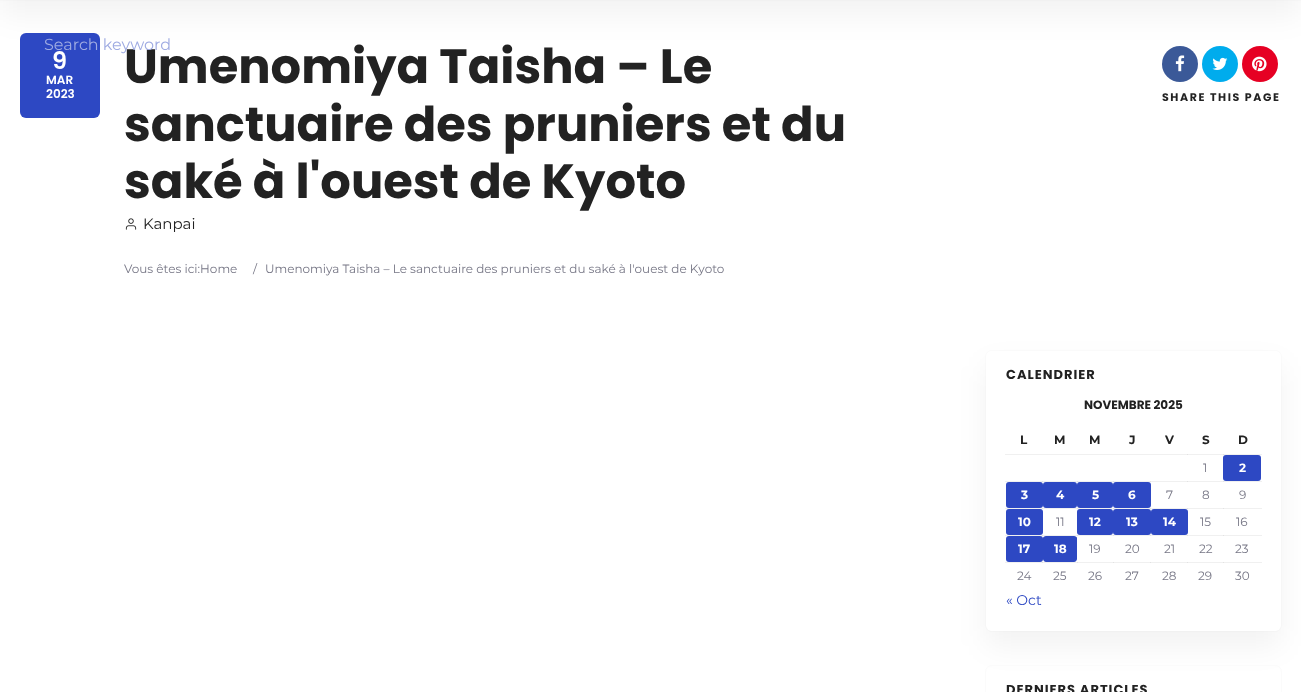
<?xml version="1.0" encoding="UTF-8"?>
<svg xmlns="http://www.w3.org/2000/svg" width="1301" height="692">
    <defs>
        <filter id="blur1" x="-50%" y="-200%" width="200%" height="500%"><feGaussianBlur stdDeviation="15"/></filter>
    </defs>
    <rect width="100%" height="100%" fill="#FFFFFF"/>
    <rect x="0" y="0" width="1301" height="1" fill="#FCFCFC"/>
    <rect x="20" y="33" width="80" height="85" rx="6" fill="#2D48C3"/>
    <circle cx="1180" cy="64" r="18" fill="#3B5998"/>
    <image x="1175" y="55" width="10" height="17" href="img_02.png"/>
    <circle cx="1220" cy="64" r="18" fill="#00ACED"/>
    <image x="1212" y="57" width="16" height="13" href="img_03.png"/>
    <circle cx="1260" cy="64" r="18" fill="#E60023"/>
    <image x="1252" y="56" width="15" height="16" href="img_04.png"/>
    <rect x="0" y="-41" width="1301" height="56" fill="#000000" fill-opacity="0.05" filter="url(#blur1)"/>
    <text x="124" y="83" font-family="Poppins" font-size="48" font-weight="700" fill="#222222">Umenomiya Taisha – Le</text>
    <text x="44" y="50" font-family="Montserrat" font-size="16" fill="#9FABE2">Search keyword</text>
    <text x="52" y="69" font-family="Poppins" font-size="24" font-weight="600" fill="#FFFFFF">9</text>
    <text font-family="Poppins" font-size="12" font-weight="600" fill="#FFFFFF">
        <tspan x="46" y="84">MAR</tspan>
        <tspan x="46" y="98">2023</tspan>
    </text>
    <text font-family="Poppins" font-size="48" font-weight="700" fill="#222222">
        <tspan x="124" y="141">sanctuaire des pruniers et du</tspan>
        <tspan x="124" y="198">saké à l'ouest de Kyoto</tspan>
    </text>
    <image x="125" y="218" width="12" height="12" href="img_01.png"/>
    <text x="143" y="229" font-family="Montserrat" font-size="15" fill="#222222">Kanpai</text>
    <text x="124" y="273" font-family="Montserrat" font-size="12" fill="#767685">Vous êtes ici:Home</text>
    <text x="253" y="273" font-family="Montserrat" font-size="12" fill="#767685">/</text>
    <text x="265" y="273" font-family="Montserrat" font-size="12" fill="#767685">Umenomiya Taisha – Le sanctuaire des pruniers et du saké à l'ouest de Kyoto</text>
    <text x="1162" y="101" font-family="Poppins" font-size="11" font-weight="700" letter-spacing="1.6" fill="#222222">SHARE THIS PAGE</text>
    <rect x="985.5" y="350.5" width="296" height="281" rx="6.5" fill="none" stroke="#FCFCFC"/>
    <rect x="986" y="366" width="295" height="280" rx="6" fill="#000000" fill-opacity="0.05" filter="url(#blur1)"/>
    <rect x="986" y="351" width="295" height="280" rx="6" fill="#FFFFFF"/>
    <rect x="1005" y="454" width="257" height="1" fill="#F0F0F0"/>
    <rect x="1187" y="454" width="1" height="1" fill="#E2E2E2"/>
    <rect x="1005" y="481" width="257" height="1" fill="#F0F0F0"/>
    <rect x="1042" y="481" width="1" height="1" fill="#E2E2E2"/>
    <rect x="1077" y="481" width="1" height="1" fill="#E2E2E2"/>
    <rect x="1113" y="481" width="1" height="1" fill="#E2E2E2"/>
    <rect x="1150" y="481" width="1" height="1" fill="#E2E2E2"/>
    <rect x="1187" y="481" width="1" height="1" fill="#E2E2E2"/>
    <rect x="1005" y="508" width="257" height="1" fill="#F0F0F0"/>
    <rect x="1042" y="508" width="1" height="1" fill="#E2E2E2"/>
    <rect x="1077" y="508" width="1" height="1" fill="#E2E2E2"/>
    <rect x="1113" y="508" width="1" height="1" fill="#E2E2E2"/>
    <rect x="1150" y="508" width="1" height="1" fill="#E2E2E2"/>
    <rect x="1187" y="508" width="1" height="1" fill="#E2E2E2"/>
    <rect x="1005" y="535" width="257" height="1" fill="#F0F0F0"/>
    <rect x="1042" y="535" width="1" height="1" fill="#E2E2E2"/>
    <rect x="1077" y="535" width="1" height="1" fill="#E2E2E2"/>
    <rect x="1113" y="535" width="1" height="1" fill="#E2E2E2"/>
    <rect x="1150" y="535" width="1" height="1" fill="#E2E2E2"/>
    <rect x="1187" y="535" width="1" height="1" fill="#E2E2E2"/>
    <rect x="1005" y="562" width="257" height="1" fill="#F0F0F0"/>
    <rect x="1042" y="562" width="1" height="1" fill="#E2E2E2"/>
    <rect x="1077" y="562" width="1" height="1" fill="#E2E2E2"/>
    <rect x="1113" y="562" width="1" height="1" fill="#E2E2E2"/>
    <rect x="1150" y="562" width="1" height="1" fill="#E2E2E2"/>
    <rect x="1187" y="562" width="1" height="1" fill="#E2E2E2"/>
    <text x="1006" y="379" font-family="Poppins" font-size="13" font-weight="700" letter-spacing="1" fill="#222222">CALENDRIER</text>
    <text x="1084" y="409" font-family="Poppins" font-size="12" font-weight="700" fill="#222222">NOVEMBRE 2025</text>
    <text x="1020" y="444" font-family="Montserrat" font-size="12" font-weight="700" fill="#222222">L</text>
    <text x="1054" y="444" font-family="Montserrat" font-size="12" font-weight="700" fill="#222222">M</text>
    <text x="1089" y="444" font-family="Montserrat" font-size="12" font-weight="700" fill="#222222">M</text>
    <text x="1129" y="444" font-family="Montserrat" font-size="12" font-weight="700" fill="#222222">J</text>
    <text x="1165" y="444" font-family="Montserrat" font-size="12" font-weight="700" fill="#222222">V</text>
    <text x="1202" y="444" font-family="Montserrat" font-size="12" font-weight="700" fill="#222222">S</text>
    <text x="1238" y="444" font-family="Montserrat" font-size="12" font-weight="700" fill="#222222">D</text>
    <text x="1203" y="472" font-family="Montserrat" font-size="12" fill="#767685">1</text>
    <rect x="1223" y="454" width="1" height="1" fill="#E2E2E2"/>
    <rect x="1223" y="455" width="38" height="26" rx="3" fill="#2D48C3"/>
    <text x="1239" y="472" font-family="Montserrat" font-size="12" font-weight="700" fill="#FFFFFF">2</text>
    <rect x="1006" y="482" width="37" height="26" rx="3" fill="#2D48C3"/>
    <text x="1021" y="499" font-family="Montserrat" font-size="12" font-weight="700" fill="#FFFFFF">3</text>
    <rect x="1043" y="482" width="34" height="26" rx="3" fill="#2D48C3"/>
    <text x="1056" y="499" font-family="Montserrat" font-size="12" font-weight="700" fill="#FFFFFF">4</text>
    <rect x="1077" y="482" width="36" height="26" rx="3" fill="#2D48C3"/>
    <text x="1092" y="499" font-family="Montserrat" font-size="12" font-weight="700" fill="#FFFFFF">5</text>
    <rect x="1113" y="482" width="38" height="26" rx="3" fill="#2D48C3"/>
    <text x="1128" y="499" font-family="Montserrat" font-size="12" font-weight="700" fill="#FFFFFF">6</text>
    <text x="1166" y="499" font-family="Montserrat" font-size="12" fill="#767685">7</text>
    <text x="1202" y="499" font-family="Montserrat" font-size="12" fill="#767685">8</text>
    <rect x="1223" y="481" width="1" height="1" fill="#E2E2E2"/>
    <text x="1239" y="499" font-family="Montserrat" font-size="12" fill="#767685">9</text>
    <rect x="1006" y="509" width="37" height="26" rx="3" fill="#2D48C3"/>
    <text x="1018" y="526" font-family="Montserrat" font-size="12" font-weight="700" fill="#FFFFFF">10</text>
    <text x="1056" y="526" font-family="Montserrat" font-size="12" fill="#767685">11</text>
    <rect x="1077" y="509" width="36" height="26" rx="3" fill="#2D48C3"/>
    <text x="1089" y="526" font-family="Montserrat" font-size="12" font-weight="700" fill="#FFFFFF">12</text>
    <rect x="1113" y="509" width="38" height="26" rx="3" fill="#2D48C3"/>
    <text x="1126" y="526" font-family="Montserrat" font-size="12" font-weight="700" fill="#FFFFFF">13</text>
    <rect x="1151" y="509" width="37" height="26" rx="3" fill="#2D48C3"/>
    <text x="1163" y="526" font-family="Montserrat" font-size="12" font-weight="700" fill="#FFFFFF">14</text>
    <text x="1200" y="526" font-family="Montserrat" font-size="12" fill="#767685">15</text>
    <rect x="1223" y="508" width="1" height="1" fill="#E2E2E2"/>
    <text x="1236" y="526" font-family="Montserrat" font-size="12" fill="#767685">16</text>
    <rect x="1006" y="536" width="37" height="26" rx="3" fill="#2D48C3"/>
    <text x="1018" y="553" font-family="Montserrat" font-size="12" font-weight="700" fill="#FFFFFF">17</text>
    <path d="M 1046 536 H 1074 C 1075.5 536 1077 537 1077 538 V 559 C 1077 560.5 1075.5 562 1074 562 H 1046 C 1044.5 562 1043 560.5 1043 559 V 538 C 1043 537 1044.5 536 1046 536 Z" fill="#2D48C3"/>
    <text x="1054" y="553" font-family="Montserrat" font-size="12" font-weight="700" fill="#FFFFFF">18</text>
    <text x="1089" y="553" font-family="Montserrat" font-size="12" fill="#767685">19</text>
    <text x="1125" y="553" font-family="Montserrat" font-size="12" fill="#767685">20</text>
    <text x="1164" y="553" font-family="Montserrat" font-size="12" fill="#767685">21</text>
    <text x="1199" y="553" font-family="Montserrat" font-size="12" fill="#767685">22</text>
    <rect x="1223" y="535" width="1" height="1" fill="#E2E2E2"/>
    <text x="1235" y="553" font-family="Montserrat" font-size="12" fill="#767685">23</text>
    <text x="1017" y="580" font-family="Montserrat" font-size="12" fill="#767685">24</text>
    <text x="1053" y="580" font-family="Montserrat" font-size="12" fill="#767685">25</text>
    <text x="1088" y="580" font-family="Montserrat" font-size="12" fill="#767685">26</text>
    <text x="1125" y="580" font-family="Montserrat" font-size="12" fill="#767685">27</text>
    <text x="1162" y="580" font-family="Montserrat" font-size="12" fill="#767685">28</text>
    <text x="1198" y="580" font-family="Montserrat" font-size="12" fill="#767685">29</text>
    <rect x="1223" y="562" width="1" height="1" fill="#E2E2E2"/>
    <text x="1235" y="580" font-family="Montserrat" font-size="12" fill="#767685">30</text>
    <text x="1006" y="605" font-family="Montserrat" font-size="14" fill="#2D48C3">« Oct</text>
    <rect x="985.5" y="665.5" width="296" height="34" rx="6.5" fill="none" stroke="#FBFBFB"/>
    <text x="1006" y="694" font-family="Poppins" font-size="13" font-weight="700" letter-spacing="1" fill="#222222">DERNIERS ARTICLES</text>
</svg>
